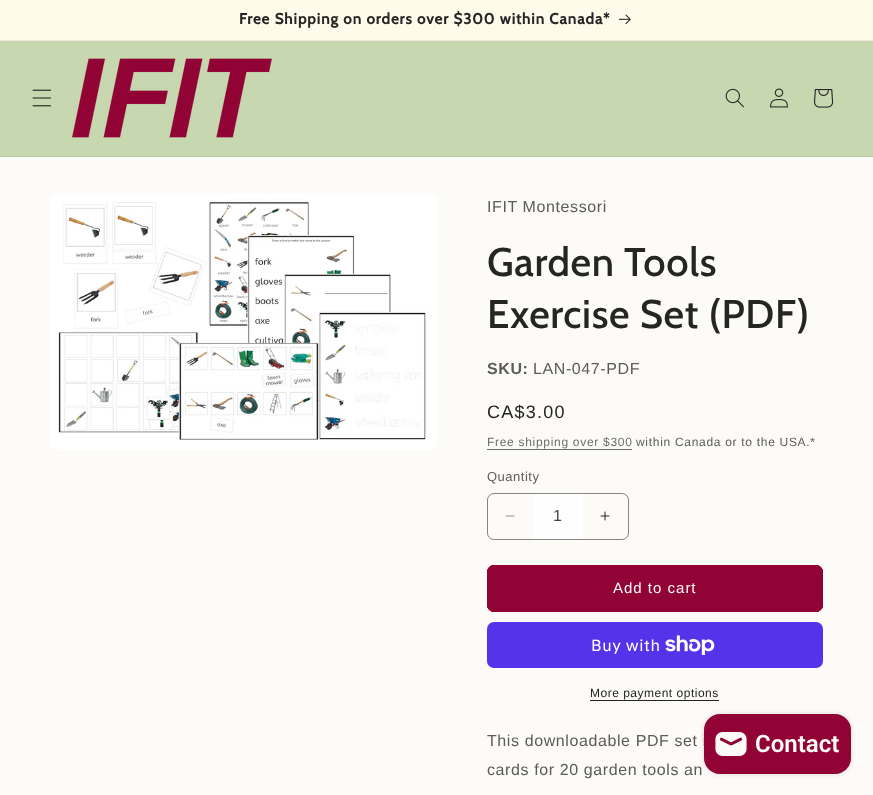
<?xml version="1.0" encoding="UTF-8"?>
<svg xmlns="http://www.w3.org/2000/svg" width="873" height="795">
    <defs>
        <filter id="blur1" x="-50%" y="-200%" width="200%" height="500%"><feGaussianBlur stdDeviation="2.5"/></filter>
    </defs>
    <rect width="100%" height="100%" fill="#FCFBF8"/>
    <rect x="0" y="0" width="873" height="40" fill="#FFFBEB"/>
    <rect x="0" y="40" width="873" height="1" fill="#EEEADB"/>
    <text x="239" y="24" font-family="Cabin" font-size="15" font-weight="700" letter-spacing="1" fill="#252525">Free Shipping on orders over $300 within Canada*</text>
    <image x="619" y="14" width="12" height="11" href="img_01.png"/>
    <rect x="0" y="41" width="873" height="115" fill="#C7D7B0"/>
    <rect x="0" y="156" width="873" height="1" fill="#BAC9A5"/>
    <image x="32" y="89" width="20" height="18" href="img_02.png"/>
    <image x="72" y="58" width="200" height="80" href="img_03.png"/>
    <image x="725" y="88" width="19" height="20" href="img_04.png"/>
    <image x="770" y="88" width="18" height="20" href="img_05.png"/>
    <image x="814" y="89" width="20" height="19" href="img_06.png"/>
    <image x="50" y="193" width="387" height="257" href="img_07.png"/>
    <text x="487" y="212" font-family="Liberation Sans" font-size="16" letter-spacing="0.6" fill="#5B5B5A">IFIT Montessori</text>
    <text font-family="Cabin" font-size="40" font-weight="500" letter-spacing="0.6" fill="#252525">
        <tspan x="487" y="276">Garden Tools</tspan>
        <tspan x="487" y="328">Exercise Set (PDF)</tspan>
    </text>
    <text x="487" y="374" font-family="Liberation Sans" font-size="16" font-weight="700" letter-spacing="0.6" fill="#5B5B5A">SKU:</text>
    <text x="533" y="374" font-family="Liberation Sans" font-size="16" letter-spacing="0.6" fill="#5B5B5A">LAN-047-PDF</text>
    <text x="487" y="418" font-family="Liberation Sans" font-size="18" letter-spacing="1.25" fill="#252525">CA$3.00</text>
    <text x="487" y="446" font-family="Liberation Sans" font-size="12" letter-spacing="0.7" fill="#6A6F6D">Free shipping over $300</text>
    <rect x="487" y="449" width="145" height="1" fill="#6A6F6D"/>
    <text x="636" y="446" font-family="Liberation Sans" font-size="12" letter-spacing="0.7" fill="#5B5B5A">within Canada or to the USA.*</text>
    <text x="487" y="481" font-family="Liberation Sans" font-size="13" letter-spacing="0.5" fill="#5B5B5A">Quantity</text>
    <image x="505" y="515" width="10" height="2" href="img_08.png"/>
    <rect x="533" y="493" width="50" height="47" fill="#FFFEFE"/>
    <image x="600" y="511" width="10" height="10" href="img_09.png"/>
    <rect x="487.5" y="493.5" width="141" height="46" rx="6.5" fill="none" stroke="#252525" stroke-opacity="0.55"/>
    <text x="553" y="521" font-family="Liberation Sans" font-size="16" fill="#454545">1</text>
    <rect x="487" y="565" width="336" height="47" rx="7" fill="#910335"/>
    <rect x="487.5" y="565.5" width="335" height="46" rx="6.5" fill="none" stroke="#910335"/>
    <rect x="487.5" y="565.5" width="335" height="46" rx="6.5" fill="none" stroke="#910335"/>
    <text x="613" y="593" font-family="Liberation Sans" font-size="15" letter-spacing="1" fill="#FCFBF8">Add to cart</text>
    <rect x="487" y="622" width="336" height="46" rx="7" fill="#5433EB"/>
    <text x="591" y="651" font-family="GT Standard" font-size="16" letter-spacing="0.6" fill="#FFFFFF">Buy with</text>
    <image x="665" y="635" width="50" height="20" href="img_10.png"/>
    <text x="590" y="697" font-family="Liberation Sans" font-size="12" letter-spacing="0.5" fill="#252525">More payment options</text>
    <rect x="590" y="700" width="129" height="1" fill="#252525"/>
    <text font-family="Liberation Sans" font-size="16" letter-spacing="0.6" fill="#5B5B5A">
        <tspan x="487" y="746">This downloadable PDF set i</tspan>
        <tspan x="487" y="775">cards for 20 garden tools an</tspan>
    </text>
    <rect x="704" y="714" width="147" height="60" rx="16" fill="#000000" fill-opacity="0.15" filter="url(#blur1)"/>
    <rect x="704" y="714" width="147" height="60" rx="16" fill="#910335"/>
    <image x="715" y="732" width="32" height="24" href="img_11.png"/>
    <text x="755" y="752" font-family="Roboto" font-size="24" font-weight="600" fill="#FCFBF8">Contact</text>
</svg>
